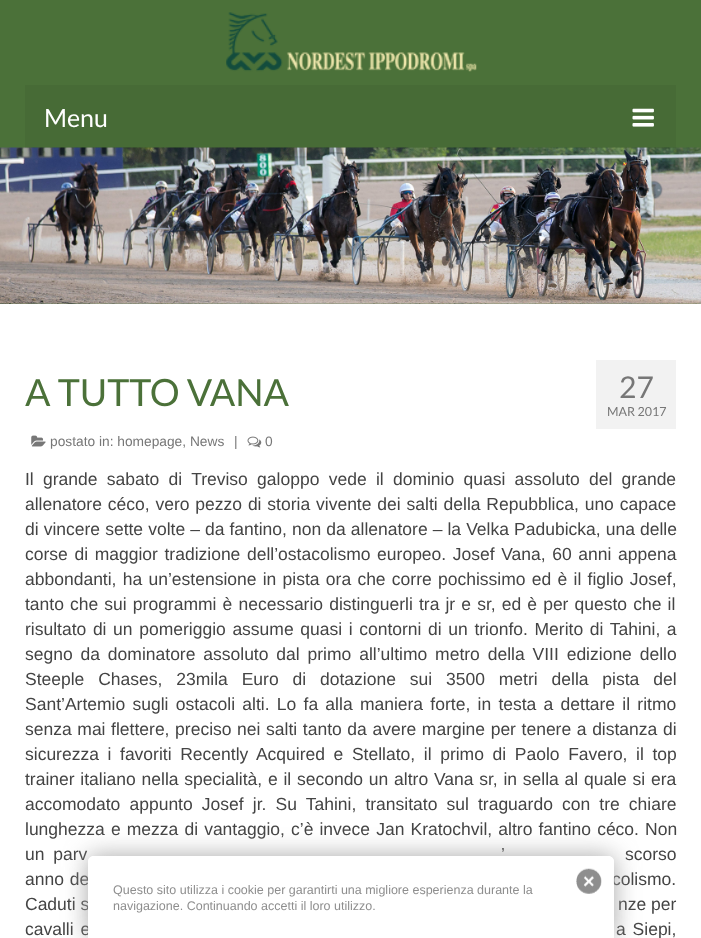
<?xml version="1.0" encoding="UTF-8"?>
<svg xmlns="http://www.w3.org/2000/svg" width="701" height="938">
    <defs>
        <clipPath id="clip1"><path d="M 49 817 H 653 V 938 H 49 Z M 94 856 H 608 C 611.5 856 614 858.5 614 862 V 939 H 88 V 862 C 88 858.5 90.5 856 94 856 Z" clip-rule="evenodd"/></clipPath>
        <filter id="blur1" x="-50%" y="-200%" width="200%" height="500%"><feGaussianBlur stdDeviation="12.5"/></filter>
    </defs>
    <rect width="100%" height="100%" fill="#4B7139"/>
    <image x="226" y="12" width="251" height="60" href="img_01.png"/>
    <image x="0" y="147" width="701" height="157" href="img_03.png"/>
    <rect x="25" y="85" width="651" height="63" fill="#000000" fill-opacity="0.05"/>
    <text x="44" y="127" font-family="Lato" font-size="25" fill="#FFFFFF">Menu</text>
    <image x="632" y="108" width="22" height="19" href="img_02.png"/>
    <rect x="0" y="304" width="701" height="634" fill="#FFFFFF"/>
    <text x="25" y="406" font-family="Lato" font-size="37.5" fill="#4B7139">A TUTTO VANA</text>
    <image x="31" y="435" width="15" height="12" href="img_04.png"/>
    <text x="50" y="446" font-family="Liberation Sans" font-size="13.75" fill="#777777">postato in: homepage, News</text>
    <text x="234" y="446" font-family="Liberation Sans" font-size="13.75" fill="#777777">|</text>
    <image x="247" y="436" width="15" height="12" href="img_05.png"/>
    <text x="265" y="446" font-family="Liberation Sans" font-size="13.75" fill="#777777">0</text>
    <rect x="596" y="360" width="80" height="69" fill="#F2F2F2"/>
    <text x="619" y="398" font-family="Lato" font-size="30" fill="#777777">27</text>
    <text x="607" y="416" font-family="Lato" font-size="12.5" fill="#777777">MAR 2017</text>
    <text font-family="Liberation Sans" font-size="17.5" fill="#444444">
        <tspan x="25" y="485" word-spacing="4.4">Il grande sabato di Treviso galoppo vede il dominio quasi assoluto del grande</tspan>
        <tspan x="25" y="510" word-spacing="1">allenatore céco, vero pezzo di storia vivente dei salti della Repubblica, uno capace</tspan>
        <tspan x="25" y="535" word-spacing="0.2">di vincere sette volte – da fantino, non da allenatore – la Velka Padubicka, una delle</tspan>
        <tspan x="25" y="560" word-spacing="1.75">corse di maggior tradizione dell’ostacolismo europeo. Josef Vana, 60 anni appena</tspan>
        <tspan x="25" y="585" word-spacing="1.4">abbondanti, ha un’estensione in pista ora che corre pochissimo ed è il figlio Josef,</tspan>
        <tspan x="25" y="610" word-spacing="1.25">tanto che sui programmi è necessario distinguerli tra jr e sr, ed è per questo che il</tspan>
        <tspan x="25" y="635" word-spacing="1.75">risultato di un pomeriggio assume quasi i contorni di un trionfo. Merito di Tahini, a</tspan>
        <tspan x="25" y="660" word-spacing="3">segno da dominatore assoluto dal primo all’ultimo metro della VIII edizione dello</tspan>
        <tspan x="25" y="685" word-spacing="9">Steeple Chases, 23mila Euro di dotazione sui 3500 metri della pista del</tspan>
        <tspan x="25" y="710" word-spacing="2.4">Sant’Artemio sugli ostacoli alti. Lo fa alla maniera forte, in testa a dettare il ritmo</tspan>
        <tspan x="25" y="735" word-spacing="0.75">senza mai flettere, preciso nei salti tanto da avere margine per tenere a distanza di</tspan>
        <tspan x="25" y="760" word-spacing="3.75">sicurezza i favoriti Recently Acquired e Stellato, il primo di Paolo Favero, il top</tspan>
        <tspan x="25" y="785" word-spacing="0.9">trainer italiano nella specialità, e il secondo un altro Vana sr, in sella al quale si era</tspan>
        <tspan x="25" y="810" word-spacing="4.25">accomodato appunto Josef jr. Su Tahini, transitato sul traguardo con tre chiare</tspan>
        <tspan x="25" y="835" word-spacing="1.25">lunghezza e mezza di vantaggio, c’è invece Jan Kratochvil, altro fantino céco. Non</tspan>
    </text>
    <text x="501" y="860" word-spacing="4" font-family="Liberation Sans" font-size="17.5" fill="#444444">’</text>
    <text x="25" y="860" word-spacing="4" font-family="Liberation Sans" font-size="17.5" fill="#444444">un parv</text>
    <text x="625" y="860" word-spacing="4" font-family="Liberation Sans" font-size="17.5" fill="#444444">scorso</text>
    <text x="25" y="885" word-spacing="1" font-family="Liberation Sans" font-size="17.5" fill="#444444">anno de</text>
    <text x="612" y="885" word-spacing="1" font-family="Liberation Sans" font-size="17.5" fill="#444444">colismo.</text>
    <text x="25" y="910" font-family="Liberation Sans" font-size="17.5" fill="#444444">Caduti s</text>
    <text x="618" y="910" font-family="Liberation Sans" font-size="17.5" fill="#444444">nze per</text>
    <text x="25" y="935" word-spacing="2" font-family="Liberation Sans" font-size="17.5" fill="#444444">cavalli e</text>
    <text x="616" y="935" word-spacing="2" font-family="Liberation Sans" font-size="17.5" fill="#444444">a Siepi,</text>
    <g clip-path="url(#clip1)">
        <rect x="88" y="856" width="526" height="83" rx="6" fill="#A1A1A1" fill-opacity="0.95" filter="url(#blur1)"/>
    </g>
    <path d="M 94 856 H 608 C 611.5 856 614 858.5 614 862 V 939 H 88 V 862 C 88 858.5 90.5 856 94 856 Z" fill="#FFFFFF" fill-opacity="0.95"/>
    <image x="576" y="868" width="26" height="26" href="img_06.png"/>
    <text font-family="Liberation Sans" font-size="12.5" fill="#8E8E8E">
        <tspan x="113" y="894">Questo sito utilizza i cookie per garantirti una migliore esperienza durante la</tspan>
        <tspan x="113" y="910">navigazione. Continuando accetti il loro utilizzo.</tspan>
    </text>
</svg>
